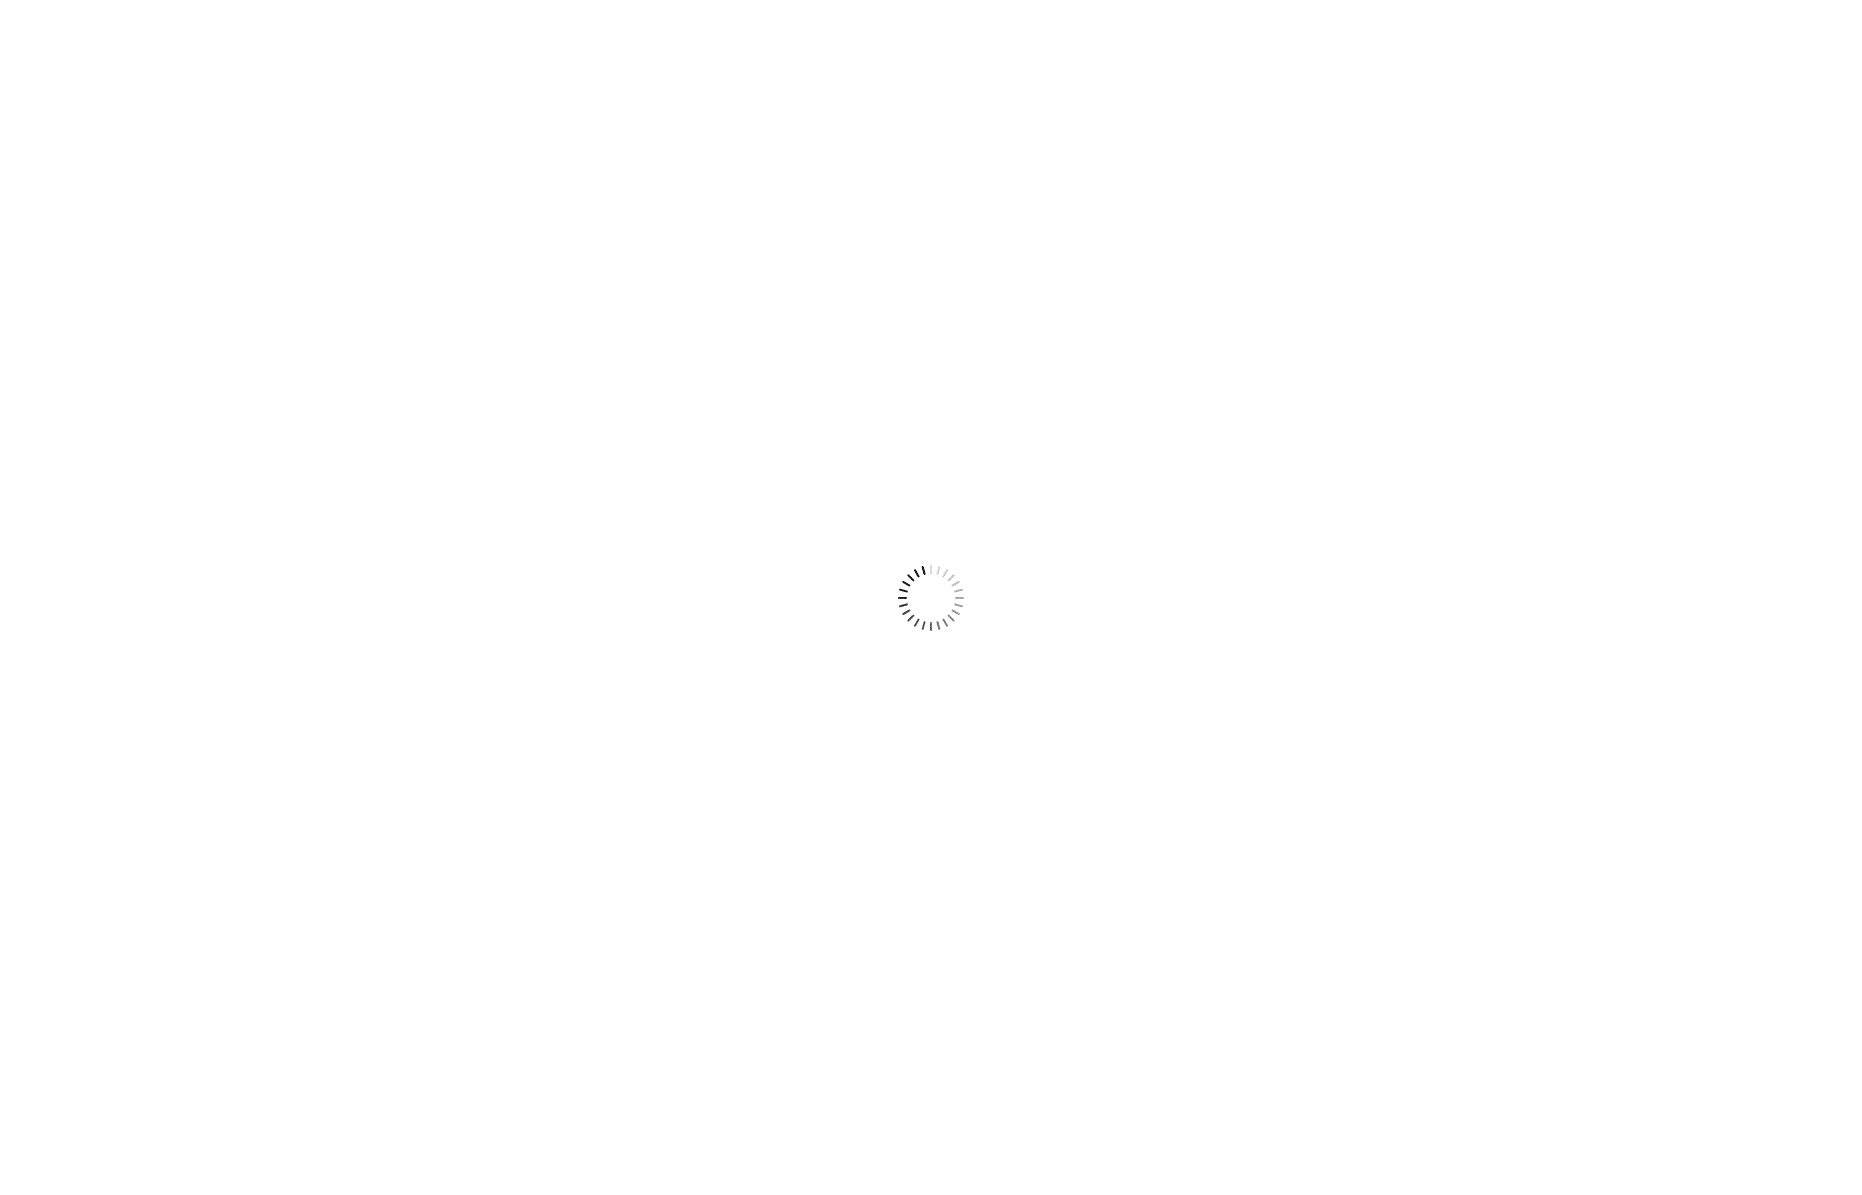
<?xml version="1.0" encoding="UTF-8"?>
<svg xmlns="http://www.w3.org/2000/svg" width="1862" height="1195">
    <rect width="100%" height="100%" fill="#FFFFFF"/>
    <image x="898" y="565" width="66" height="66" href="img_01.png"/>
</svg>
